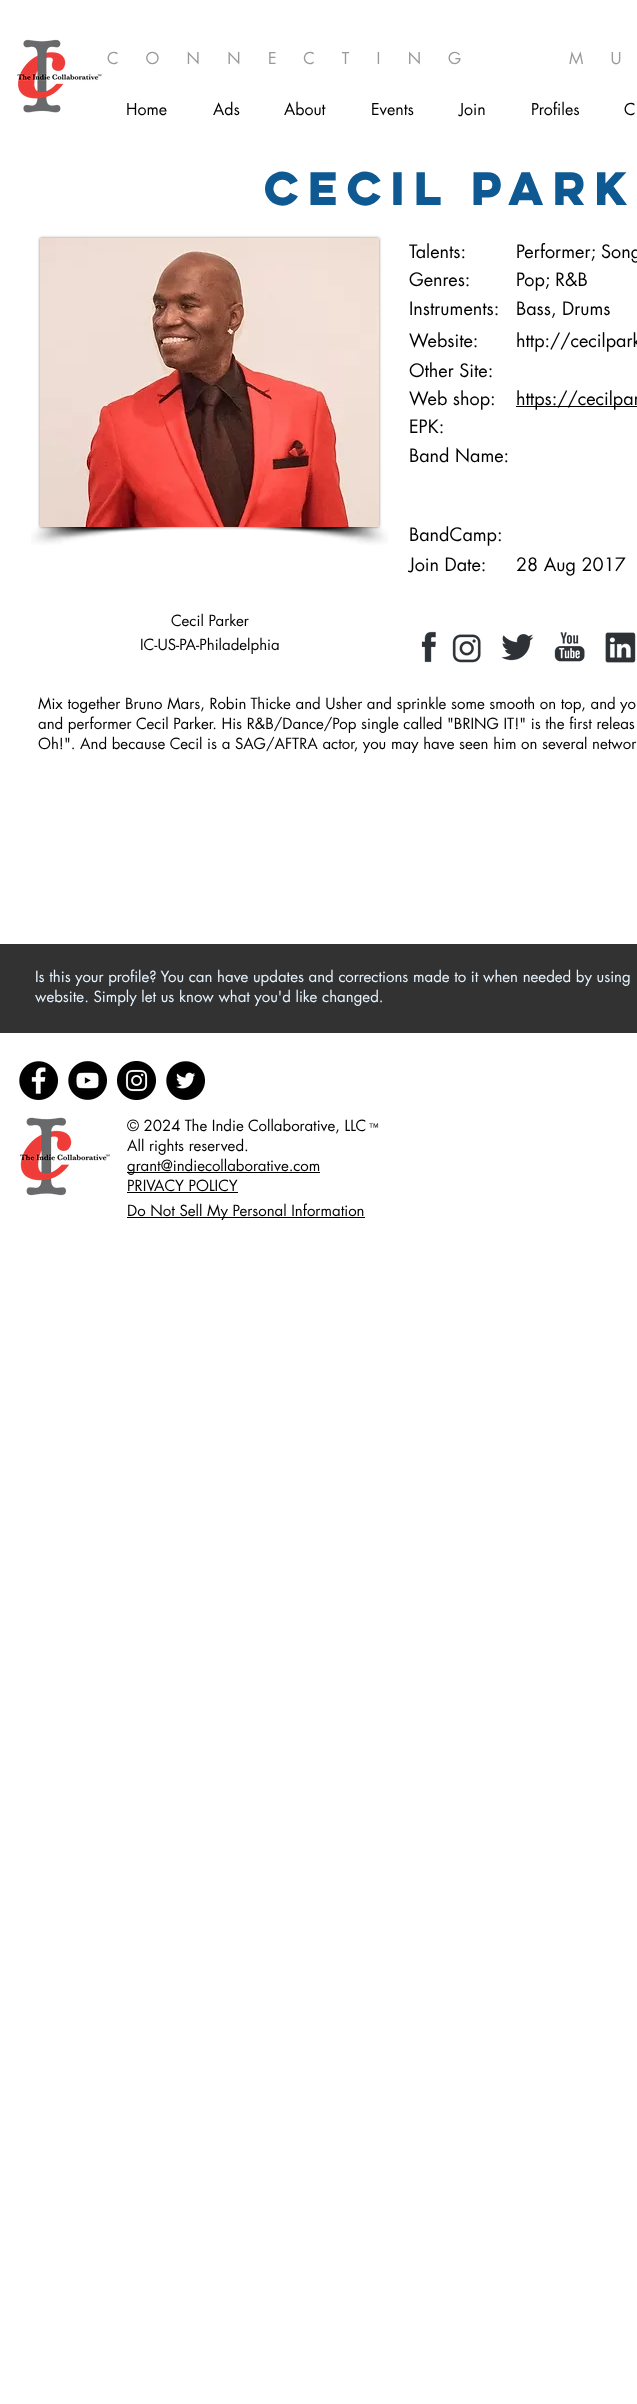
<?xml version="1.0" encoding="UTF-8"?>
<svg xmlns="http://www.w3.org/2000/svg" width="637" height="2404">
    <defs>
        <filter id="blur1" x="-50%" y="-200%" width="200%" height="500%"><feGaussianBlur stdDeviation="1.5"/></filter>
    </defs>
    <rect width="100%" height="100%" fill="#FFFFFF"/>
    <image x="17" y="39" width="85" height="74" href="img_01.png"/>
    <text x="107" y="64" font-family="futura" font-size="16" letter-spacing="11.2" fill="#999997" xml:space="preserve">C O N N E C T I N G      M U</text>
    <text x="126" y="115" font-family="futura" font-size="16" fill="#000000">Home</text>
    <text x="213" y="115" font-family="futura" font-size="16" fill="#000000">Ads</text>
    <text x="284" y="115" font-family="futura" font-size="16" fill="#000000">About</text>
    <text x="371" y="115" font-family="futura" font-size="16" fill="#000000">Events</text>
    <text x="459" y="115" font-family="futura" font-size="16" fill="#000000">Join</text>
    <text x="531" y="115" font-family="futura" font-size="16" fill="#000000">Profiles</text>
    <text x="624" y="115" font-family="futura" font-size="16" fill="#000000">C</text>
    <text x="264" y="205" font-family="'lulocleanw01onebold'" font-size="42" font-weight="700" fill="#0E5992">Cecil Park</text>
    <text x="409" y="258" font-family="futura" font-size="18" fill="#000000">Talents:</text>
    <text x="516" y="258" font-family="futura" font-size="18" fill="#000000">Performer; Song</text>
    <text x="409" y="286" font-family="futura" font-size="18" fill="#000000">Genres:</text>
    <text x="516" y="286" font-family="futura" font-size="18" fill="#000000">Pop; R&amp;B</text>
    <text x="409" y="315" font-family="futura" font-size="18" fill="#000000">Instruments:</text>
    <text x="516" y="315" font-family="futura" font-size="18" fill="#000000">Bass, Drums</text>
    <text x="409" y="347" font-family="futura" font-size="18" fill="#000000">Website:</text>
    <text x="516" y="347" font-family="futura" font-size="18" fill="#000000">http://cecilpark</text>
    <text font-family="futura" font-size="18" fill="#000000">
        <tspan x="409" y="377">Other Site:</tspan>
        <tspan x="409" y="405">Web shop:</tspan>
    </text>
    <rect x="516" y="406" width="121" height="1" fill="#000000"/>
    <text x="516" y="405" font-family="futura" font-size="18" fill="#000000">https://cecilpar</text>
    <text font-family="futura" font-size="18" fill="#000000">
        <tspan x="409" y="433">EPK:</tspan>
        <tspan x="409" y="462">Band Name:</tspan>
    </text>
    <text font-family="futura" font-size="18" fill="#000000">
        <tspan x="409" y="541">BandCamp:</tspan>
        <tspan x="409" y="571">Join Date:</tspan>
    </text>
    <text x="516" y="571" font-family="futura" font-size="18" fill="#000000">28 Aug 2017</text>
    <text x="171" y="626" font-family="futura" font-size="15" fill="#000000">Cecil Parker</text>
    <text x="140" y="650" font-family="futura" font-size="15" fill="#000000">IC-US-PA-Philadelphia</text>
    <image x="421" y="631" width="15" height="32" href="img_02.png"/>
    <image x="452" y="634" width="29" height="29" href="img_03.png"/>
    <image x="501" y="634" width="33" height="27" href="img_04.png"/>
    <image x="554" y="632" width="31" height="30" href="img_05.png"/>
    <image x="605" y="632" width="31" height="31" href="img_06.png"/>
    <text font-family="futura" font-size="15" fill="#000000">
        <tspan x="38" y="709">Mix together Bruno Mars, Robin Thicke and Usher and sprinkle some smooth on top, and yo</tspan>
        <tspan x="38" y="729">and performer Cecil Parker. His R&amp;B/Dance/Pop single called "BRING IT!" is the first releas</tspan>
        <tspan x="38" y="749">Oh!". And because Cecil is a SAG/AFTRA actor, you may have seen him on several networ</tspan>
    </text>
    <rect x="40" y="238" width="339" height="289" fill="#000000" fill-opacity="0.5" filter="url(#blur1)"/>
    <image x="40" y="238" width="339" height="289" href="img_07.png"/>
    <image x="31" y="527" width="154" height="18" href="img_08.png"/>
    <image x="234" y="527" width="154" height="18" href="img_09.png"/>
    <rect x="0" y="944" width="637" height="89" fill="#323232"/>
    <text font-family="futura" font-size="15" fill="#E6F4FF">
        <tspan x="35" y="982">Is this your profile? You can have updates and corrections made to it when needed by using</tspan>
        <tspan x="35" y="1002">website. Simply let us know what you'd like changed.</tspan>
    </text>
    <image x="19" y="1061" width="39" height="39" href="img_10.png"/>
    <image x="68" y="1061" width="39" height="39" href="img_11.png"/>
    <image x="117" y="1061" width="39" height="39" href="img_12.png"/>
    <image x="166" y="1061" width="39" height="39" href="img_13.png"/>
    <image x="20" y="1117" width="90" height="79" href="img_14.png"/>
    <text x="127" y="1131" font-family="futura" font-size="15" fill="#000000">© 2024 The Indie Collaborative, LLC</text>
    <text x="369" y="1131" font-family="futura" font-size="10" fill="#000000">™</text>
    <text x="127" y="1151" font-family="futura" font-size="15" fill="#000000">All rights reserved.</text>
    <rect x="127" y="1172" width="193" height="1" fill="#000000"/>
    <text font-family="futura" font-size="15" fill="#000000">
        <tspan x="127" y="1171">grant@indiecollaborative.com</tspan>
        <tspan x="127" y="1191">PRIVACY POLICY</tspan>
    </text>
    <rect x="127" y="1192" width="111" height="1" fill="#000000"/>
    <rect x="127" y="1217" width="238" height="1" fill="#000000"/>
    <text x="127" y="1216" font-family="futura" font-size="15" fill="#000000">Do Not Sell My Personal Information</text>
</svg>
